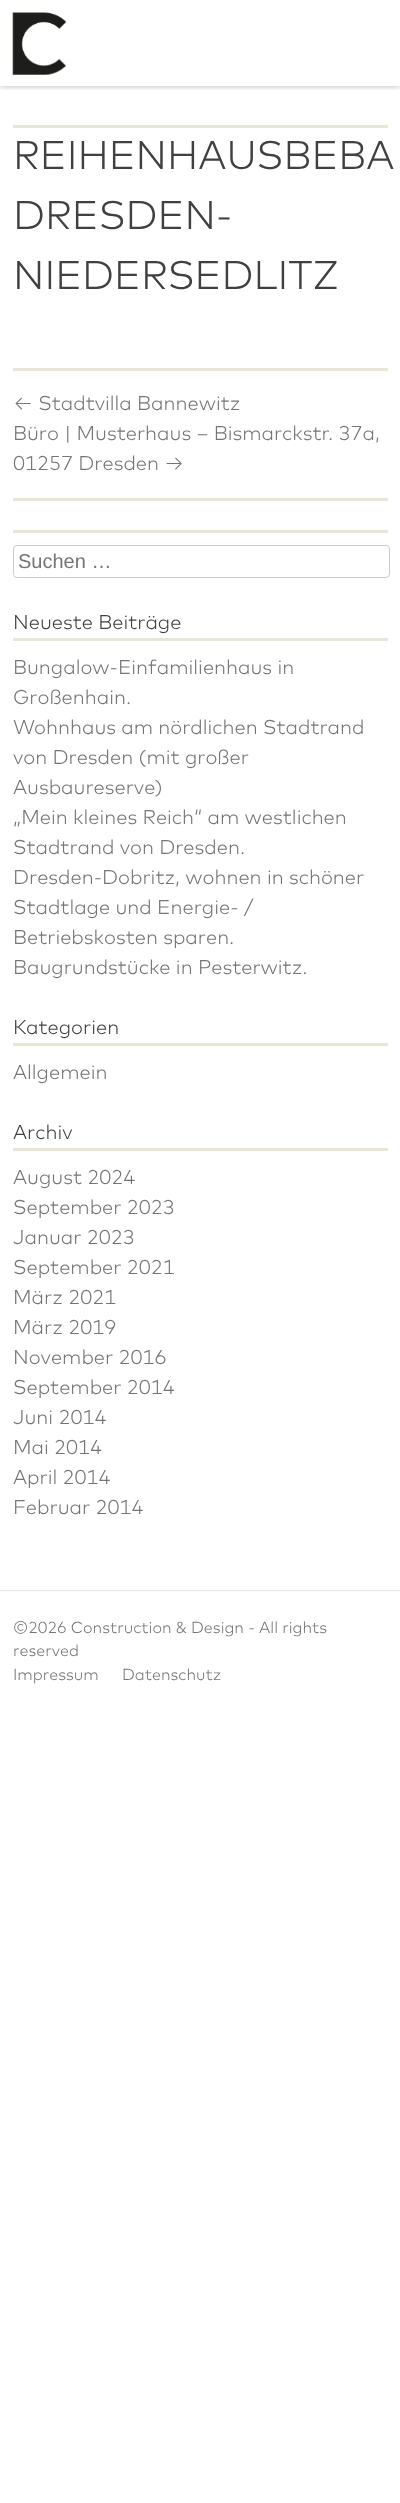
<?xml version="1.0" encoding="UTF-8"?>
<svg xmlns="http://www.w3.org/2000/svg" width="400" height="2503">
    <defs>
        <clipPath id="clip1"><rect x="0" y="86" width="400" height="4"/></clipPath>
        <filter id="blur1" x="-50%" y="-200%" width="200%" height="500%"><feGaussianBlur stdDeviation="3"/></filter>
    </defs>
    <rect width="100%" height="100%" fill="#FFFFFF"/>
    <g clip-path="url(#clip1)">
        <rect x="0" y="0" width="400" height="86" fill="#000000" fill-opacity="0.3" filter="url(#blur1)"/>
    </g>
    <image x="12" y="12" width="55" height="63" href="img_01.png"/>
    <rect x="13" y="125" width="375" height="3" fill="#E8E6D4"/>
    <text font-family="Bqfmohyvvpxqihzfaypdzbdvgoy" font-size="40" font-weight="300" fill="#404040">
        <tspan x="13" y="169">REIHENHAUSBEBA</tspan>
        <tspan x="13" y="229">DRESDEN-</tspan>
        <tspan x="13" y="289">NIEDERSEDLITZ</tspan>
    </text>
    <rect x="13" y="368" width="375" height="3" fill="#E8E6D4"/>
    <rect x="13" y="498" width="375" height="3" fill="#E8E6D4"/>
    <text font-family="Bqfmohyvvpxqihzfaypdzbdvgoy" font-size="20" font-weight="300" fill="#757575">
        <tspan x="13" y="410">← Stadtvilla Bannewitz</tspan>
        <tspan x="13" y="440">Büro | Musterhaus – Bismarckstr. 37a,</tspan>
        <tspan x="13" y="470">01257 Dresden →</tspan>
    </text>
    <rect x="13" y="530" width="375" height="3" fill="#E8E6D4"/>
    <rect x="13.5" y="545.5" width="376" height="32" rx="3.5" fill="none" stroke="#CCCCCC"/>
    <text x="18" y="568" font-family="Liberation Sans" font-size="20" fill="#757575">Suchen …</text>
    <rect x="13" y="638" width="375" height="3" fill="#E8E6D4"/>
    <text x="13" y="629" font-family="Bqfmohyvvpxqihzfaypdzbdvgoy" font-size="20" font-weight="300" fill="#404040">Neueste Beiträge</text>
    <text font-family="Bqfmohyvvpxqihzfaypdzbdvgoy" font-size="20" font-weight="300" fill="#757575">
        <tspan x="13" y="674">Bungalow-Einfamilienhaus in</tspan>
        <tspan x="13" y="704">Großenhain.</tspan>
        <tspan x="13" y="734">Wohnhaus am nördlichen Stadtrand</tspan>
        <tspan x="13" y="764">von Dresden (mit großer</tspan>
        <tspan x="13" y="794">Ausbaureserve)</tspan>
        <tspan x="13" y="824">„Mein kleines Reich“ am westlichen</tspan>
        <tspan x="13" y="854">Stadtrand von Dresden.</tspan>
        <tspan x="13" y="884">Dresden-Dobritz, wohnen in schöner</tspan>
        <tspan x="13" y="914">Stadtlage und Energie- /</tspan>
        <tspan x="13" y="944">Betriebskosten sparen.</tspan>
        <tspan x="13" y="974">Baugrundstücke in Pesterwitz.</tspan>
    </text>
    <rect x="13" y="1043" width="375" height="3" fill="#E8E6D4"/>
    <text x="13" y="1034" font-family="Bqfmohyvvpxqihzfaypdzbdvgoy" font-size="20" font-weight="300" fill="#404040">Kategorien</text>
    <text x="13" y="1079" font-family="Bqfmohyvvpxqihzfaypdzbdvgoy" font-size="20" font-weight="300" fill="#757575">Allgemein</text>
    <rect x="13" y="1148" width="375" height="3" fill="#E8E6D4"/>
    <text x="13" y="1139" font-family="Bqfmohyvvpxqihzfaypdzbdvgoy" font-size="20" font-weight="300" fill="#404040">Archiv</text>
    <text font-family="Bqfmohyvvpxqihzfaypdzbdvgoy" font-size="20" font-weight="300" fill="#757575">
        <tspan x="13" y="1184">August 2024</tspan>
        <tspan x="13" y="1214">September 2023</tspan>
        <tspan x="13" y="1244">Januar 2023</tspan>
        <tspan x="13" y="1274">September 2021</tspan>
        <tspan x="13" y="1304">März 2021</tspan>
        <tspan x="13" y="1334">März 2019</tspan>
        <tspan x="13" y="1364">November 2016</tspan>
        <tspan x="13" y="1394">September 2014</tspan>
        <tspan x="13" y="1424">Juni 2014</tspan>
        <tspan x="13" y="1454">Mai 2014</tspan>
        <tspan x="13" y="1484">April 2014</tspan>
        <tspan x="13" y="1514">Februar 2014</tspan>
    </text>
    <rect x="0" y="1590" width="400" height="1" fill="#E8E6D4"/>
    <text font-family="Bqfmohyvvpxqihzfaypdzbdvgoy" font-size="16" font-weight="300" fill="#757575">
        <tspan x="13" y="1633">©2026 Construction &amp; Design - All rights</tspan>
        <tspan x="13" y="1656">reserved</tspan>
        <tspan x="13" y="1680">Impressum</tspan>
    </text>
    <text x="122" y="1680" font-family="Bqfmohyvvpxqihzfaypdzbdvgoy" font-size="16" font-weight="300" fill="#757575">Datenschutz</text>
</svg>
